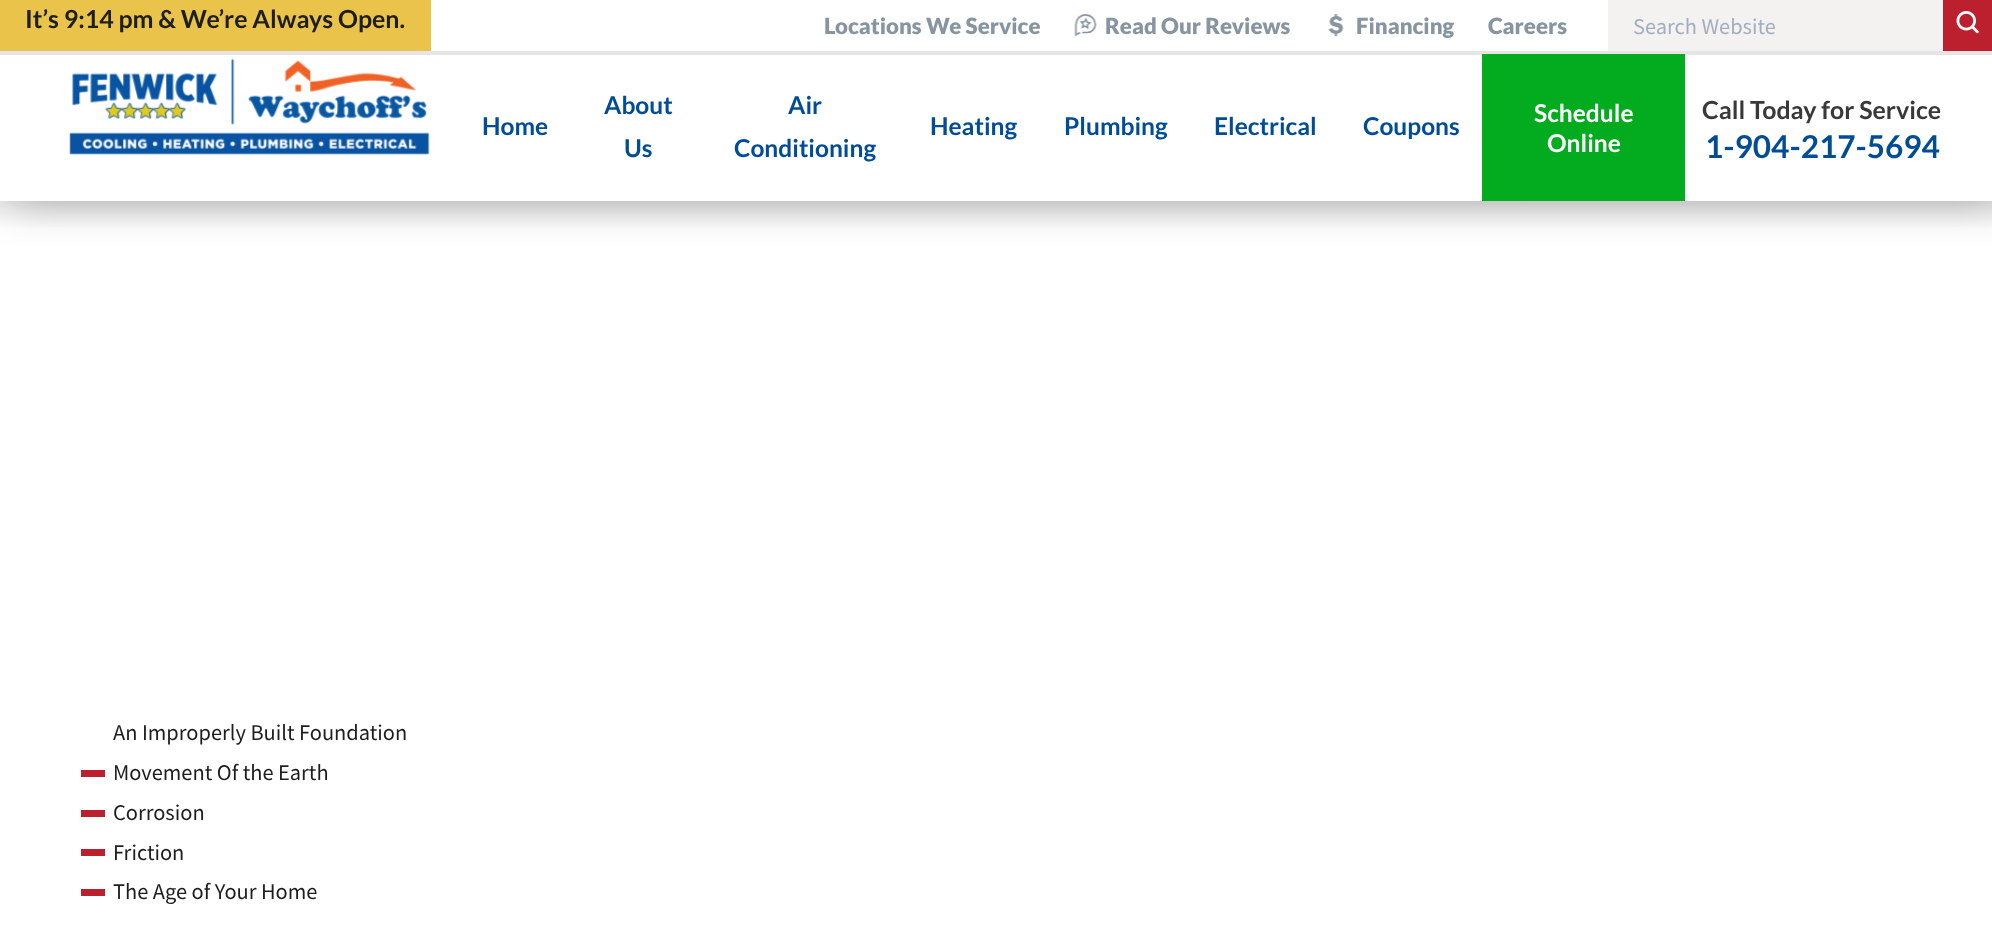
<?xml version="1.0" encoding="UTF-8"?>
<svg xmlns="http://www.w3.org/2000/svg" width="1992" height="926">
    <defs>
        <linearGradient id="g1" gradientUnits="userSpaceOnUse" x1="997" y1="0" x2="997" y2="231"><stop offset="0" stop-color="#666666"/><stop offset="1" stop-color="#FFFFFF"/></linearGradient>
        <filter id="blur1" x="-50%" y="-200%" width="200%" height="500%"><feGaussianBlur stdDeviation="22"/></filter>
    </defs>
    <rect width="100%" height="100%" fill="#FFFFFF"/>
    <rect x="0" y="201" width="1992" height="26" fill="url(#g1)"/>
    <rect x="11" y="0" width="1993" height="201" fill="#000000" fill-opacity="0.3" filter="url(#blur1)"/>
    <rect x="0" y="0" width="1992" height="201" fill="#FFFFFF"/>
    <rect x="0" y="51" width="1992" height="4" fill="#E5E5E5"/>
    <rect x="0" y="0" width="431" height="51" fill="#EAC44A"/>
    <text x="25" y="28" font-family="Lato" font-size="24.9" font-weight="700" fill="#1E1E1E">It’s 9:14 pm &amp; We’re Always Open.</text>
    <text x="824" y="34" font-family="Lato" font-size="22.25" font-weight="900" fill="#8795A1">Locations We Service</text>
    <image x="1074" y="14" width="23" height="22" href="img_01.png"/>
    <text x="1105" y="34" font-family="Lato" font-size="22.25" font-weight="900" fill="#8795A1">Read Our Reviews</text>
    <image x="1328" y="14" width="16" height="23" href="img_02.png"/>
    <text x="1356" y="34" font-family="Lato" font-size="22.25" font-weight="900" fill="#8795A1">Financing</text>
    <text x="1488" y="34" font-family="Lato" font-size="22.25" font-weight="900" fill="#8795A1">Careers</text>
    <rect x="1608" y="0" width="335" height="51" fill="#F4F2F1"/>
    <text x="1633" y="34" font-family="Source Sans Pro" font-size="22.4" fill="#A0AEC0">Search Website</text>
    <rect x="1943" y="0" width="49" height="51" fill="#BC202E"/>
    <image x="1956" y="11" width="23" height="23" href="img_03.png"/>
    <image x="69" y="58" width="361" height="97" href="img_04.png"/>
    <text x="482" y="135" font-family="Lato" font-size="24.5" font-weight="700" fill="#004C97">Home</text>
    <text x="604" y="114" font-family="Lato" font-size="24.5" font-weight="700" fill="#004C97">About</text>
    <text x="624" y="157" font-family="Lato" font-size="24.5" font-weight="700" fill="#004C97">Us</text>
    <text x="788" y="114" font-family="Lato" font-size="24.5" font-weight="700" fill="#004C97">Air</text>
    <text x="734" y="157" font-family="Lato" font-size="24.5" font-weight="700" fill="#004C97">Conditioning</text>
    <text x="930" y="135" font-family="Lato" font-size="24.5" font-weight="700" fill="#004C97">Heating</text>
    <text x="1064" y="135" font-family="Lato" font-size="24.5" font-weight="700" fill="#004C97">Plumbing</text>
    <text x="1214" y="135" font-family="Lato" font-size="24.5" font-weight="700" fill="#004C97">Electrical</text>
    <text x="1363" y="135" font-family="Lato" font-size="24.5" font-weight="700" fill="#004C97">Coupons</text>
    <rect x="1482" y="54" width="203" height="147" fill="#02AC1E"/>
    <text x="1534" y="122" font-family="Lato" font-size="24.5" font-weight="700" fill="#FFFFFF">Schedule</text>
    <text x="1547" y="152" font-family="Lato" font-size="24.5" font-weight="700" fill="#FFFFFF">Online</text>
    <text x="1702" y="119" font-family="Lato" font-size="24.9" font-weight="700" fill="#393939">Call Today for Service</text>
    <text x="1705" y="158" font-family="Lato" font-size="31.5" font-weight="700" fill="#004C97">1-904-217-5694</text>
    <text x="113" y="740" font-family="Source Sans Pro" font-size="22.4" fill="#1E1E1E">An Improperly Built Foundation</text>
    <rect x="81" y="770" width="24" height="7" fill="#BC202E"/>
    <text x="113" y="780" font-family="Source Sans Pro" font-size="22.4" fill="#1E1E1E">Movement Of the Earth</text>
    <rect x="81" y="810" width="24" height="7" fill="#BC202E"/>
    <text x="113" y="820" font-family="Source Sans Pro" font-size="22.4" fill="#1E1E1E">Corrosion</text>
    <rect x="81" y="849" width="24" height="7" fill="#BC202E"/>
    <text x="113" y="860" font-family="Source Sans Pro" font-size="22.4" fill="#1E1E1E">Friction</text>
    <rect x="81" y="889" width="24" height="7" fill="#BC202E"/>
    <text x="113" y="899" font-family="Source Sans Pro" font-size="22.4" fill="#1E1E1E">The Age of Your Home</text>
</svg>
